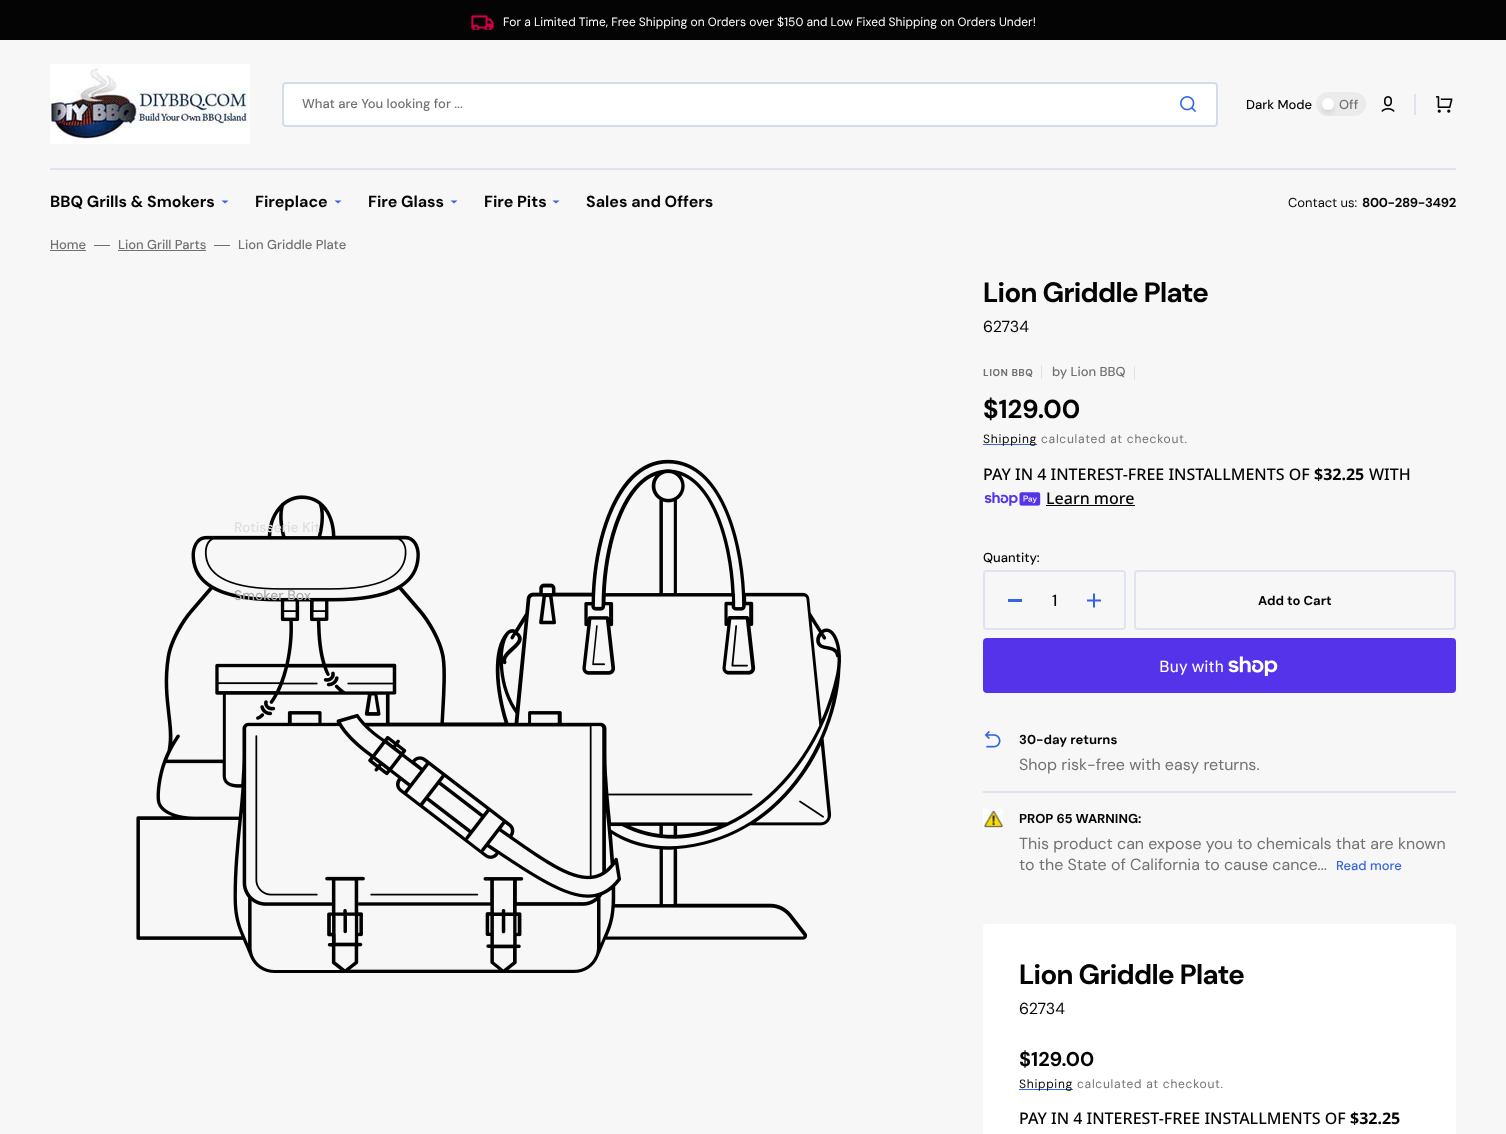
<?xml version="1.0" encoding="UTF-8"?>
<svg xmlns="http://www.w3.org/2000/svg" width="1506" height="1134">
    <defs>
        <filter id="blur1" x="-50%" y="-200%" width="200%" height="500%"><feGaussianBlur stdDeviation="2"/></filter>
    </defs>
    <rect width="100%" height="100%" fill="#F7F7F7"/>
    <rect x="0" y="0" width="1506" height="40" fill="#040404"/>
    <image x="471" y="15" width="23" height="15" href="img_01.png"/>
    <text x="503" y="26" word-spacing="-0.1" font-family="'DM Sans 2'" font-size="12" fill="#FFFFFF">For a Limited Time, Free Shipping on Orders over $150 and Low Fixed Shipping on Orders Under!</text>
    <image x="50" y="64" width="200" height="80" href="img_02.png"/>
    <rect x="283" y="83" width="934" height="43" rx="3" fill="#FFFFFF" stroke="#D5DCE7" stroke-width="2"/>
    <text x="302" y="108" font-family="DM Sans" font-size="13" font-weight="500" fill="#717171">What are You looking for ...</text>
    <image x="1180" y="96" width="17" height="17" href="img_03.png"/>
    <text x="1246" y="109" font-family="DM Sans" font-size="13" font-weight="500" fill="#040404">Dark Mode</text>
    <rect x="1316" y="92" width="50" height="24" rx="12" fill="#EBEBEB"/>
    <rect x="1322" y="102" width="12" height="12" rx="6" fill="#32314E" fill-opacity="0.1" filter="url(#blur1)"/>
    <circle cx="1328" cy="104" r="6" fill="#FFFFFF"/>
    <text x="1339" y="109" font-family="DM Sans" font-size="13" font-weight="500" fill="#717171">Off</text>
    <image x="1381" y="96" width="14" height="16" href="img_04.png"/>
    <rect x="1414" y="94" width="2" height="21" fill="#E0E3EE"/>
    <image x="1436" y="96" width="17" height="17" href="img_05.png"/>
    <rect x="50" y="168" width="1406" height="2" fill="#E0E3EE"/>
    <text x="50" y="207" font-family="'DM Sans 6'" font-size="16" font-weight="700" fill="#040404">BBQ Grills &amp; Smokers</text>
    <path d="M 225 203.5 L 221.5 200.5 H 228.5 Z" fill="#3565E0"/>
    <image x="136" y="459" width="705" height="514" href="img_06.png"/>
    <text x="234" y="532" font-family="'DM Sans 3'" font-size="14" font-weight="500" fill="#DEDEDE">Rotisserie Kit</text>
    <text x="234" y="600" font-family="'DM Sans 3'" font-size="14" font-weight="500" fill="#ACACAC">Smoker Box</text>
    <text x="255" y="207" font-family="'DM Sans 6'" font-size="16" font-weight="700" fill="#040404">Fireplace</text>
    <path d="M 338 203.5 L 334.5 200.5 H 341.5 Z" fill="#3565E0"/>
    <text x="368" y="207" font-family="'DM Sans 6'" font-size="16" font-weight="700" fill="#040404">Fire Glass</text>
    <path d="M 454 203.5 L 450.5 200.5 H 457.5 Z" fill="#3565E0"/>
    <text x="484" y="207" font-family="'DM Sans 6'" font-size="16" font-weight="700" fill="#040404">Fire Pits</text>
    <path d="M 556 203.5 L 552.5 200.5 H 559.5 Z" fill="#3565E0"/>
    <text x="586" y="207" font-family="'DM Sans 6'" font-size="16" font-weight="700" fill="#040404">Sales and Offers</text>
    <text x="1288" y="207" font-family="'DM Sans 3'" font-size="13" fill="#040404">Contact us:</text>
    <text x="1362" y="207" font-family="'DM Sans 3'" font-size="13" font-weight="700" letter-spacing="-0.25" fill="#040404">800-289-3492</text>
    <text x="50" y="249" font-family="DM Sans" font-size="13" font-weight="500" fill="#717171">Home</text>
    <rect x="50" y="250" width="36" height="1" fill="#717171"/>
    <rect x="94" y="245" width="16" height="1" fill="#717171"/>
    <text x="118" y="249" font-family="DM Sans" font-size="13" font-weight="500" fill="#717171">Lion Grill Parts</text>
    <rect x="118" y="250" width="88" height="1" fill="#717171"/>
    <rect x="214" y="245" width="16" height="1" fill="#717171"/>
    <text x="238" y="249" font-family="DM Sans" font-size="13" font-weight="500" fill="#717171">Lion Griddle Plate</text>
    <text x="983" y="302" font-family="DM Sans" font-size="28" font-weight="700" letter-spacing="-0.6" fill="#040404">Lion Griddle Plate</text>
    <text x="983" y="332" font-family="DM Sans" font-size="16" fill="#040404">62734</text>
    <text x="983" y="376" font-family="'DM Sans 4'" font-size="10" font-weight="700" letter-spacing="0.5" fill="#717171">LION BBQ</text>
    <rect x="1041" y="365" width="1" height="14" fill="#E0E3EE"/>
    <text x="1052" y="376" font-family="DM Sans" font-size="13" font-weight="500" fill="#717171">by Lion BBQ</text>
    <rect x="1134" y="366" width="1" height="14" fill="#E0E3EE"/>
    <text x="983" y="418" font-family="'DM Sans 2'" font-size="26" font-weight="700" fill="#040404">$129.00</text>
    <rect x="983" y="444" width="54" height="1" fill="#3565E0"/>
    <text x="983" y="443" font-family="'DM Sans 2'" font-size="12" letter-spacing="0.7" fill="#040404">Shipping</text>
    <text x="1041" y="443" font-family="'DM Sans 2'" font-size="12" letter-spacing="0.7" fill="#717171">calculated at checkout.</text>
    <text x="983" y="480" font-family="Noto Sans" font-size="16" font-weight="500" fill="#040404">PAY IN 4 INTEREST-FREE INSTALLMENTS OF</text>
    <text x="1314" y="480" font-family="Noto Sans" font-size="16" font-weight="700" fill="#040404">$32.25</text>
    <text x="1369" y="480" font-family="Noto Sans" font-size="16" font-weight="500" fill="#040404">WITH</text>
    <image x="984" y="492" width="57" height="14" href="img_07.png"/>
    <text x="1046" y="504" font-family="Noto Sans" font-size="16" font-weight="500" fill="#040404">Learn more</text>
    <rect x="1046" y="505" width="89" height="1" fill="#040404"/>
    <text x="983" y="562" font-family="DM Sans" font-size="13" font-weight="500" fill="#040404">Quantity:</text>
    <rect x="984" y="571" width="141" height="58" rx="3" fill="none" stroke="#E0E3EE" stroke-width="2"/>
    <rect x="1008" y="599" width="14" height="3" fill="#3565E0"/>
    <text x="1052" y="606" font-family="'DM Sans 2'" font-size="16" font-weight="500" fill="#040404">1</text>
    <image x="1087" y="593" width="14" height="15" href="img_08.png"/>
    <rect x="1135" y="571" width="320" height="58" rx="3" fill="none" stroke="#E0E3EE" stroke-width="2"/>
    <text x="1258" y="605" font-family="'DM Sans 3'" font-size="13" font-weight="700" fill="#040404">Add to Cart</text>
    <rect x="983" y="638" width="473" height="55" rx="4" fill="#5433EB"/>
    <text x="1159" y="672" font-family="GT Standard" font-size="16" fill="#FFFFFF">Buy with</text>
    <image x="1228" y="656" width="50" height="20" href="img_09.png"/>
    <image x="984" y="731" width="17" height="17" href="img_10.png"/>
    <text x="1019" y="744" font-family="'DM Sans 3'" font-size="13" font-weight="700" fill="#040404">30-day returns</text>
    <text x="1019" y="770" font-family="DM Sans" font-size="16" fill="#717171">Shop risk-free with easy returns.</text>
    <rect x="983" y="791" width="473" height="2" fill="#E0E3EE"/>
    <image x="983" y="809" width="20" height="20" href="img_11.png"/>
    <text x="1019" y="823" font-family="'DM Sans 3'" font-size="13" font-weight="700" fill="#040404">PROP 65 WARNING:</text>
    <text font-family="DM Sans" font-size="16" fill="#717171">
        <tspan x="1019" y="849">This product can expose you to chemicals that are known</tspan>
        <tspan x="1019" y="870">to the State of California to cause cance...</tspan>
    </text>
    <text x="1336" y="870" font-family="DM Sans" font-size="13" font-weight="500" fill="#3565E0">Read more</text>
    <rect x="983" y="924" width="473" height="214" rx="4" fill="#FFFFFF"/>
    <text x="1019" y="984" font-family="DM Sans" font-size="28" font-weight="700" letter-spacing="-0.6" fill="#040404">Lion Griddle Plate</text>
    <text x="1019" y="1014" font-family="DM Sans" font-size="16" fill="#040404">62734</text>
    <text x="1019" y="1066" font-family="'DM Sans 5'" font-size="20" font-weight="700" fill="#040404">$129.00</text>
    <rect x="1019" y="1089" width="54" height="1" fill="#3565E0"/>
    <text x="1019" y="1088" font-family="'DM Sans 2'" font-size="12" letter-spacing="0.7" fill="#040404">Shipping</text>
    <text x="1077" y="1088" font-family="'DM Sans 2'" font-size="12" letter-spacing="0.7" fill="#717171">calculated at checkout.</text>
    <text x="1019" y="1124" font-family="Noto Sans" font-size="16" font-weight="500" fill="#040404">PAY IN 4 INTEREST-FREE INSTALLMENTS OF</text>
    <text x="1350" y="1124" font-family="Noto Sans" font-size="16" font-weight="700" fill="#040404">$32.25</text>
</svg>
